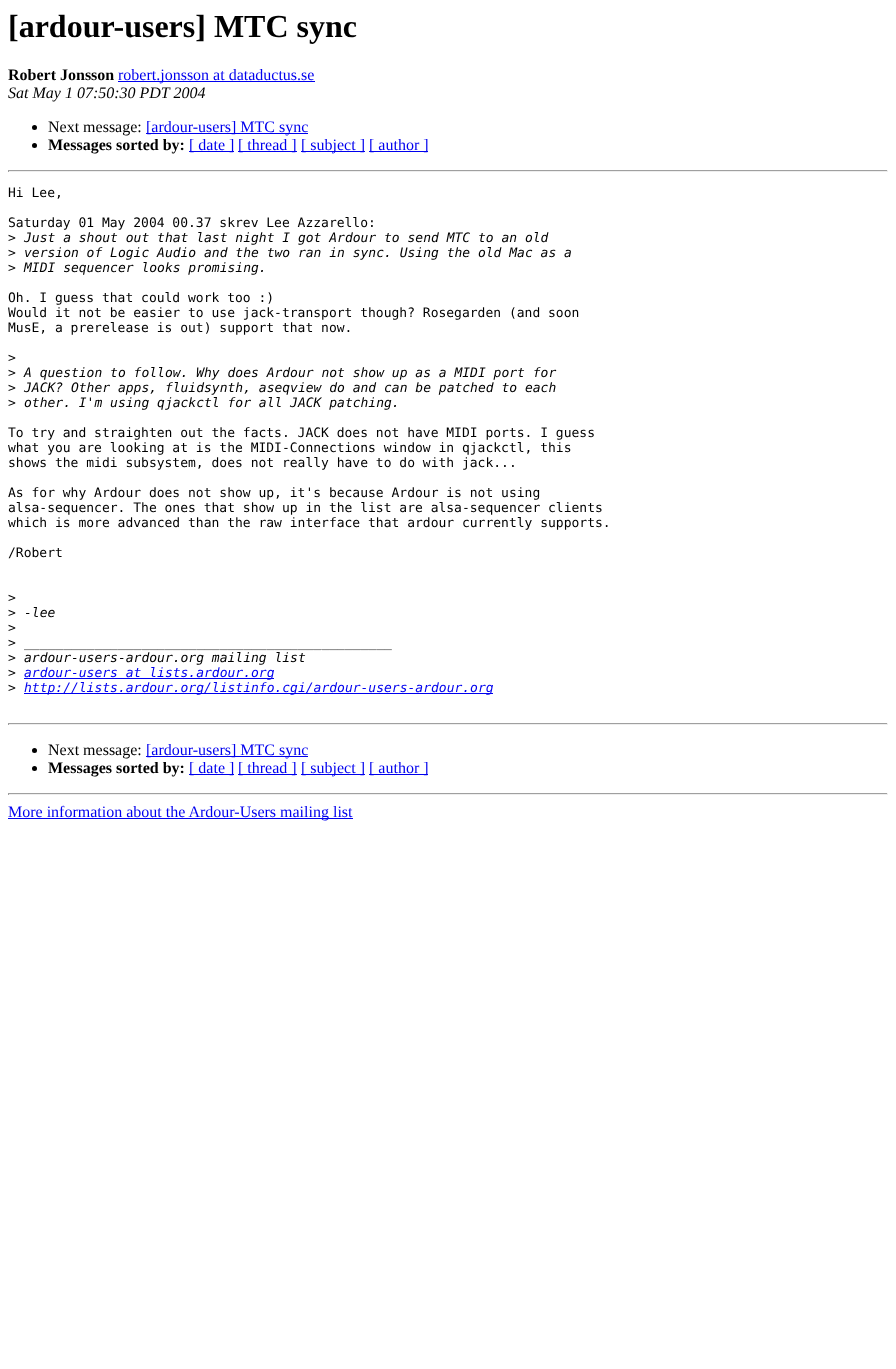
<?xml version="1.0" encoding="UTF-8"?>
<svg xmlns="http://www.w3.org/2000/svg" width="896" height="1369">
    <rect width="100%" height="100%" fill="#FFFFFF"/>
    <text x="8" y="37" font-family="Liberation Serif" font-size="32" font-weight="700" fill="#000000">[ardour-users] MTC sync</text>
    <text x="8" y="80" font-family="Liberation Serif" font-size="16" font-weight="700" fill="#000000">Robert Jonsson</text>
    <rect x="118" y="81" width="197" height="1" fill="#0000EE"/>
    <text x="118" y="80" font-family="Liberation Serif" font-size="16" fill="#0000EE">robert.jonsson at dataductus.se</text>
    <text x="8" y="98" font-family="Liberation Serif" font-size="16" font-style="italic" fill="#000000">Sat May 1 07:50:30 PDT 2004</text>
    <circle cx="34.5" cy="127.5" r="2.5" fill="#000000"/>
    <text x="48" y="132" font-family="Liberation Serif" font-size="16" fill="#000000">Next message:</text>
    <rect x="146" y="133" width="162" height="1" fill="#0000EE"/>
    <text x="146" y="132" font-family="Liberation Serif" font-size="16" fill="#0000EE">[ardour-users] MTC sync</text>
    <circle cx="34.5" cy="145.5" r="2.5" fill="#000000"/>
    <text x="48" y="150" font-family="Liberation Serif" font-size="16" font-weight="700" fill="#000000">Messages sorted by:</text>
    <rect x="189" y="151" width="45" height="1" fill="#0000EE"/>
    <text x="189" y="150" font-family="Liberation Serif" font-size="16" fill="#0000EE">[ date ]</text>
    <rect x="238" y="151" width="59" height="1" fill="#0000EE"/>
    <text x="238" y="150" font-family="Liberation Serif" font-size="16" fill="#0000EE">[ thread ]</text>
    <rect x="301" y="151" width="64" height="1" fill="#0000EE"/>
    <text x="301" y="150" font-family="Liberation Serif" font-size="16" fill="#0000EE">[ subject ]</text>
    <rect x="369" y="151" width="59" height="1" fill="#0000EE"/>
    <text x="369" y="150" font-family="Liberation Serif" font-size="16" fill="#0000EE">[ author ]</text>
    <rect x="8" y="170" width="880" height="1" fill="#9F9F9F"/>
    <rect x="887" y="170" width="1" height="2" fill="#EEEEEE"/>
    <rect x="8" y="171" width="880" height="1" fill="#EEEEEE"/>
    <rect x="8" y="170" width="1" height="2" fill="#9F9F9F"/>
    <text x="8" y="197" font-family="DejaVu Sans Mono" font-size="13" fill="#000000">Hi Lee,</text>
    <text font-family="DejaVu Sans Mono" font-size="13" fill="#000000">
        <tspan x="8" y="227">Saturday 01 May 2004 00.37 skrev Lee Azzarello:</tspan>
        <tspan x="8" y="242">&gt;</tspan>
    </text>
    <text x="24" y="242" font-family="DejaVu Sans Mono" font-size="13" font-style="italic" fill="#000000">Just a shout out that last night I got Ardour to send MTC to an old</text>
    <text x="8" y="257" font-family="DejaVu Sans Mono" font-size="13" fill="#000000">&gt;</text>
    <text x="24" y="257" font-family="DejaVu Sans Mono" font-size="13" font-style="italic" fill="#000000">version of Logic Audio and the two ran in sync. Using the old Mac as a</text>
    <text x="8" y="272" font-family="DejaVu Sans Mono" font-size="13" fill="#000000">&gt;</text>
    <text x="24" y="272" font-family="DejaVu Sans Mono" font-size="13" font-style="italic" fill="#000000">MIDI sequencer looks promising.</text>
    <text font-family="DejaVu Sans Mono" font-size="13" fill="#000000">
        <tspan x="8" y="302">Oh. I guess that could work too :)</tspan>
        <tspan x="8" y="317">Would it not be easier to use jack-transport though? Rosegarden (and soon</tspan>
        <tspan x="8" y="332">MusE, a prerelease is out) support that now.</tspan>
    </text>
    <text font-family="DejaVu Sans Mono" font-size="13" fill="#000000">
        <tspan x="8" y="362">&gt;</tspan>
        <tspan x="8" y="377">&gt;</tspan>
    </text>
    <text x="24" y="377" font-family="DejaVu Sans Mono" font-size="13" font-style="italic" fill="#000000">A question to follow. Why does Ardour not show up as a MIDI port for</text>
    <text x="8" y="392" font-family="DejaVu Sans Mono" font-size="13" fill="#000000">&gt;</text>
    <text x="24" y="392" font-family="DejaVu Sans Mono" font-size="13" font-style="italic" fill="#000000">JACK? Other apps, fluidsynth, aseqview do and can be patched to each</text>
    <text x="8" y="407" font-family="DejaVu Sans Mono" font-size="13" fill="#000000">&gt;</text>
    <text x="24" y="407" font-family="DejaVu Sans Mono" font-size="13" font-style="italic" fill="#000000">other. I'm using qjackctl for all JACK patching.</text>
    <text font-family="DejaVu Sans Mono" font-size="13" fill="#000000">
        <tspan x="8" y="437">To try and straighten out the facts. JACK does not have MIDI ports. I guess</tspan>
        <tspan x="8" y="452">what you are looking at is the MIDI-Connections window in qjackctl, this</tspan>
        <tspan x="8" y="467">shows the midi subsystem, does not really have to do with jack...</tspan>
    </text>
    <text font-family="DejaVu Sans Mono" font-size="13" fill="#000000">
        <tspan x="8" y="497">As for why Ardour does not show up, it's because Ardour is not using</tspan>
        <tspan x="8" y="512">alsa-sequencer. The ones that show up in the list are alsa-sequencer clients</tspan>
        <tspan x="8" y="527">which is more advanced than the raw interface that ardour currently supports.</tspan>
    </text>
    <text x="8" y="557" font-family="DejaVu Sans Mono" font-size="13" fill="#000000">/Robert</text>
    <text font-family="DejaVu Sans Mono" font-size="13" fill="#000000">
        <tspan x="8" y="602">&gt;</tspan>
        <tspan x="8" y="617">&gt;</tspan>
    </text>
    <text x="24" y="617" font-family="DejaVu Sans Mono" font-size="13" font-style="italic" fill="#000000">-lee</text>
    <text font-family="DejaVu Sans Mono" font-size="13" fill="#000000">
        <tspan x="8" y="632">&gt;</tspan>
        <tspan x="8" y="647">&gt;</tspan>
    </text>
    <text x="24" y="647" font-family="DejaVu Sans Mono" font-size="13" font-style="italic" fill="#000000">_______________________________________________</text>
    <text x="8" y="662" font-family="DejaVu Sans Mono" font-size="13" fill="#000000">&gt;</text>
    <text x="24" y="662" font-family="DejaVu Sans Mono" font-size="13" font-style="italic" fill="#000000">ardour-users-ardour.org mailing list</text>
    <text x="8" y="677" font-family="DejaVu Sans Mono" font-size="13" fill="#000000">&gt;</text>
    <rect x="24" y="678" width="250" height="1" fill="#0000EE"/>
    <text x="24" y="677" font-family="DejaVu Sans Mono" font-size="13" font-style="italic" fill="#0000EE">ardour-users at lists.ardour.org</text>
    <text x="8" y="692" font-family="DejaVu Sans Mono" font-size="13" fill="#000000">&gt;</text>
    <rect x="24" y="693" width="469" height="1" fill="#0000EE"/>
    <text x="24" y="692" font-family="DejaVu Sans Mono" font-size="13" font-style="italic" fill="#0000EE">http://lists.ardour.org/listinfo.cgi/ardour-users-ardour.org</text>
    <rect x="8" y="723" width="880" height="1" fill="#9F9F9F"/>
    <rect x="887" y="723" width="1" height="2" fill="#EEEEEE"/>
    <rect x="8" y="724" width="880" height="1" fill="#EEEEEE"/>
    <rect x="8" y="723" width="1" height="2" fill="#9F9F9F"/>
    <circle cx="34.5" cy="750.5" r="2.5" fill="#000000"/>
    <text x="48" y="755" font-family="Liberation Serif" font-size="16" fill="#000000">Next message:</text>
    <rect x="146" y="756" width="162" height="1" fill="#0000EE"/>
    <text x="146" y="755" font-family="Liberation Serif" font-size="16" fill="#0000EE">[ardour-users] MTC sync</text>
    <circle cx="34.5" cy="768.5" r="2.5" fill="#000000"/>
    <text x="48" y="773" font-family="Liberation Serif" font-size="16" font-weight="700" fill="#000000">Messages sorted by:</text>
    <rect x="189" y="774" width="45" height="1" fill="#0000EE"/>
    <text x="189" y="773" font-family="Liberation Serif" font-size="16" fill="#0000EE">[ date ]</text>
    <rect x="238" y="774" width="59" height="1" fill="#0000EE"/>
    <text x="238" y="773" font-family="Liberation Serif" font-size="16" fill="#0000EE">[ thread ]</text>
    <rect x="301" y="774" width="64" height="1" fill="#0000EE"/>
    <text x="301" y="773" font-family="Liberation Serif" font-size="16" fill="#0000EE">[ subject ]</text>
    <rect x="369" y="774" width="59" height="1" fill="#0000EE"/>
    <text x="369" y="773" font-family="Liberation Serif" font-size="16" fill="#0000EE">[ author ]</text>
    <rect x="8" y="793" width="880" height="1" fill="#9F9F9F"/>
    <rect x="887" y="793" width="1" height="2" fill="#EEEEEE"/>
    <rect x="8" y="794" width="880" height="1" fill="#EEEEEE"/>
    <rect x="8" y="793" width="1" height="2" fill="#9F9F9F"/>
    <rect x="8" y="818" width="345" height="1" fill="#0000EE"/>
    <text x="8" y="817" font-family="Liberation Serif" font-size="16" fill="#0000EE">More information about the Ardour-Users mailing list</text>
</svg>
